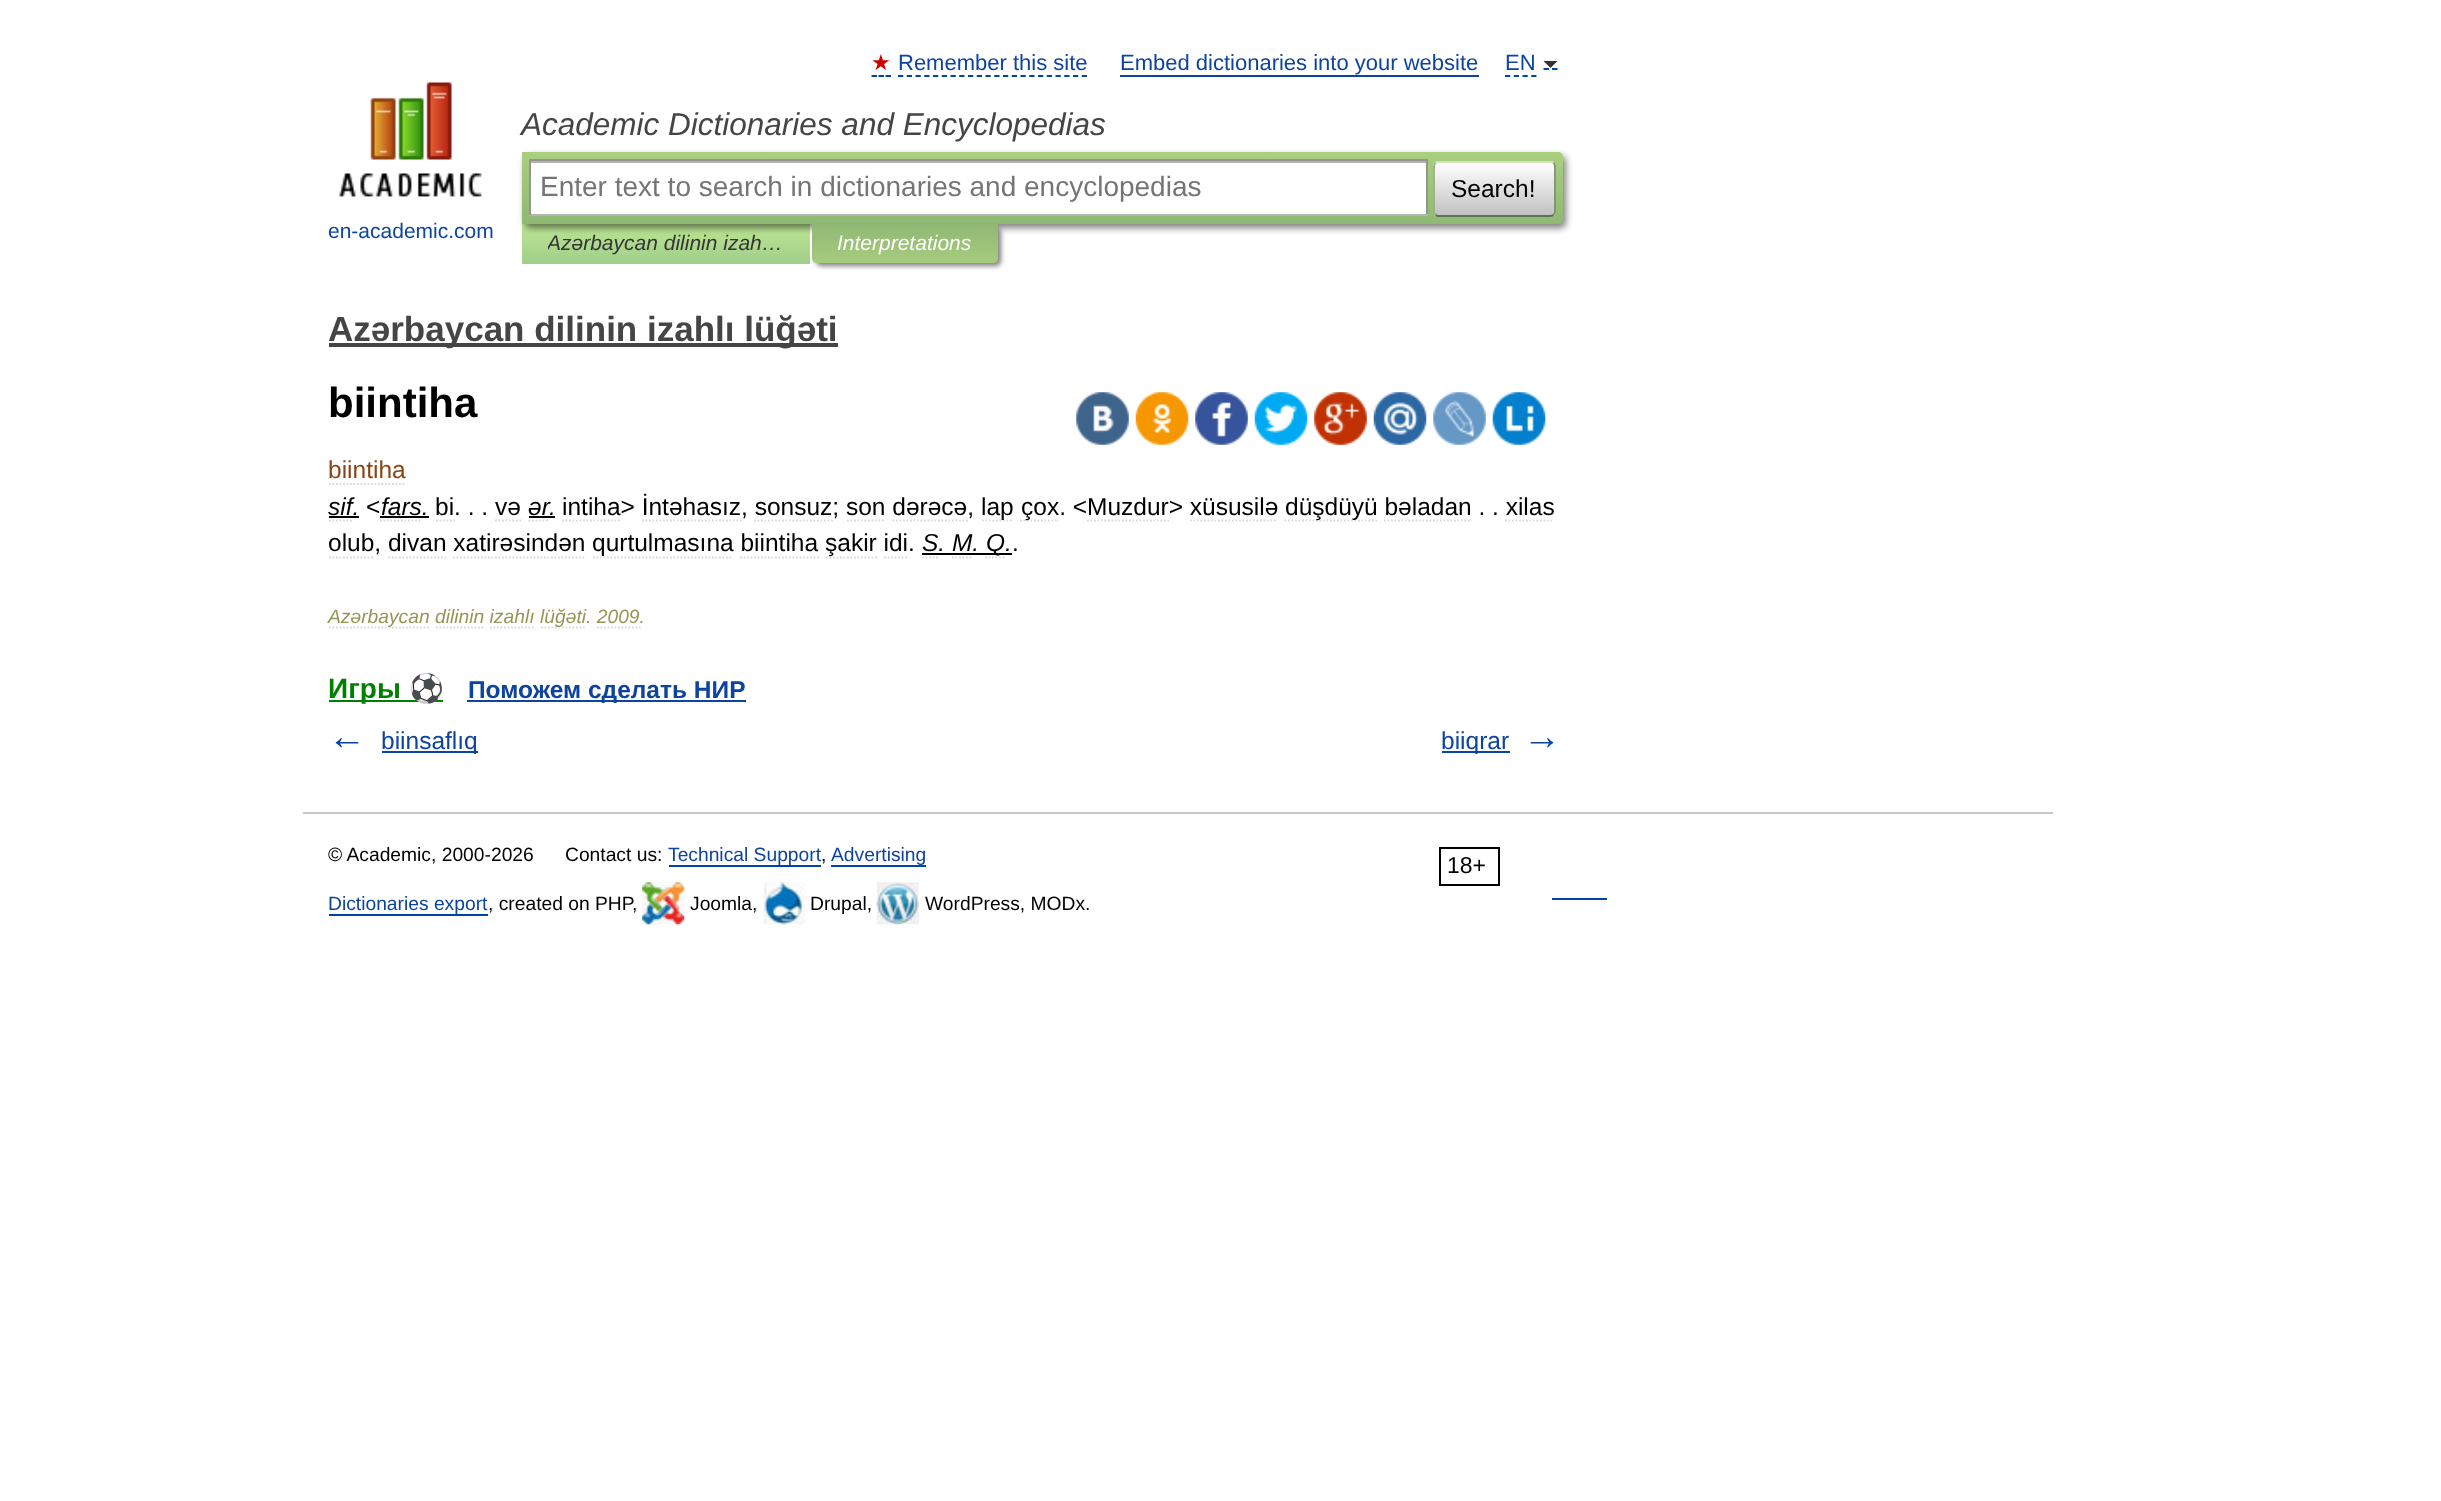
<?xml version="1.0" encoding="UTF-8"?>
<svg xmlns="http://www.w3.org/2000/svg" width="2441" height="1501">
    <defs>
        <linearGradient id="g1" gradientUnits="userSpaceOnUse" x1="666" y1="224" x2="666" y2="264"><stop offset="0" stop-color="#BDE693"/><stop offset="1" stop-color="#A0CE8A"/></linearGradient>
        <filter id="blur1" x="-50%" y="-200%" width="200%" height="500%"><feGaussianBlur stdDeviation="3.5"/></filter>
        <linearGradient id="g2" gradientUnits="userSpaceOnUse" x1="1042" y1="152" x2="1042" y2="224"><stop offset="0" stop-color="#ABCF7E"/><stop offset="1" stop-color="#8EB874"/></linearGradient>
        <clipPath id="clip1"><rect x="1433" y="161" width="123" height="56" rx="5"/></clipPath>
        <linearGradient id="g3" gradientUnits="userSpaceOnUse" x1="1495" y1="110" x2="1495" y2="163"><stop offset="0" stop-color="#FFFFFF"/><stop offset="1" stop-color="#C1C1C1"/></linearGradient>
        <linearGradient id="g4" gradientUnits="userSpaceOnUse" x1="1495" y1="163" x2="1495" y2="215"><stop offset="0" stop-color="#FFFFFF"/><stop offset="1" stop-color="#C1C1C1"/></linearGradient>
        <linearGradient id="g5" gradientUnits="userSpaceOnUse" x1="1495" y1="215" x2="1495" y2="268"><stop offset="0" stop-color="#FFFFFF"/><stop offset="1" stop-color="#C1C1C1"/></linearGradient>
        <clipPath id="clip2"><rect x="548" y="224" width="236" height="40"/></clipPath>
        <filter id="blur2" x="-50%" y="-200%" width="200%" height="500%"><feGaussianBlur stdDeviation="2.5"/></filter>
        <linearGradient id="g6" gradientUnits="userSpaceOnUse" x1="905" y1="224" x2="905" y2="263"><stop offset="0" stop-color="#8FB875"/><stop offset="1" stop-color="#A7CC7D"/></linearGradient>
    </defs>
    <rect width="100%" height="100%" fill="#FFFFFF"/>
    <text x="871" y="70" font-family="DejaVu Sans" font-size="22" fill="#CC0000">★</text>
    <path d="M 871.5 76 H 877 M 878.5 76 H 884 M 885.5 76 H 891" fill="none" stroke="#0044AA" stroke-width="1.8"/>
    <text x="898" y="70" font-family="Liberation Sans" font-size="22" fill="#0D44A0">Remember this site</text>
    <path d="M 898 76 H 1087" fill="none" stroke="#0044AA" stroke-width="1.8" stroke-dasharray="5.25 3.5"/>
    <text x="1120" y="70" font-family="Liberation Sans" font-size="22" fill="#0D44A0">Embed dictionaries into your website</text>
    <rect x="1120" y="75" width="359" height="2" fill="#0D44A0"/>
    <path d="M 1505 76 H 1536.5" fill="none" stroke="#0044AA" stroke-width="1.8" stroke-dasharray="5.25 3.5"/>
    <path d="M 1543.5 69 H 1549 M 1552 69 H 1557.5" fill="none" stroke="#0044AA" stroke-width="1.8"/>
    <text x="1505" y="70" font-family="Liberation Sans" font-size="22" fill="#0D44A0">EN</text>
    <path d="M 1543.5 61 H 1557.5 L 1550.5 68 Z" fill="#333333"/>
    <text x="521" y="135" font-family="Liberation Sans" font-size="31.5" font-style="italic" fill="#454545">Academic Dictionaries and Encyclopedias</text>
    <rect x="522" y="224" width="288" height="40" fill="url(#g1)"/>
    <rect x="525" y="156" width="1041" height="72" rx="5" fill="#000000" fill-opacity="0.5" filter="url(#blur1)"/>
    <path d="M 522 152 H 1558 C 1561 152 1563 154 1563 157 V 219 C 1563 222 1561 224 1558 224 H 522 Z" fill="url(#g2)"/>
    <rect x="531" y="163" width="895" height="51" fill="#FFFFFF"/>
    <rect x="530" y="161" width="896" height="2" fill="#B3B3B3"/>
    <rect x="529" y="159" width="899" height="2" fill="#949494"/>
    <rect x="1426" y="159" width="2" height="56" fill="#949494"/>
    <rect x="529" y="214" width="899" height="2" fill="#B4B4B4"/>
    <rect x="529" y="159" width="2" height="56" fill="#949494"/>
    <text x="540" y="196" font-family="Liberation Sans" font-size="28" fill="#757575">Enter text to search in dictionaries and encyclopedias</text>
    <g clip-path="url(#clip1)">
        <rect x="1433" y="161" width="123" height="2" fill="url(#g3)"/>
        <rect x="1433" y="163" width="123" height="52" fill="url(#g4)"/>
        <rect x="1433" y="215" width="123" height="2" fill="url(#g5)"/>
    </g>
    <path d="M 1435.5 163 C 1436 162.5 1437.5 162 1438.5 162 H 1550.5 C 1551.5 162 1553 162.5 1553.5 163" fill="none" stroke="#D1E4BC" stroke-width="1.8"/>
    <path d="M 1553.5 163 C 1554.5 164 1555 165 1555 166 V 212 C 1555 213 1554.5 214 1553.5 215" fill="none" stroke="#7A8E69" stroke-width="1.8"/>
    <path d="M 1553.5 215 C 1553 215.5 1551.5 216 1550.5 216 H 1438.5 C 1437.5 216 1436 215.5 1435.5 215" fill="none" stroke="#5D7250" stroke-width="1.8"/>
    <path d="M 1435.5 215 C 1434.5 214 1434 213 1434 212 V 166 C 1434 165 1434.5 164 1435.5 163" fill="none" stroke="#9AAE89" stroke-width="1.8"/>
    <text x="1451" y="197" font-family="Liberation Sans" font-size="24.5" fill="#000000">Search!</text>
    <image x="339" y="82" width="143" height="115" href="img_01.png"/>
    <text x="328" y="238" font-family="Liberation Sans" font-size="21" fill="#0D44A0">en-academic.com</text>
    <g clip-path="url(#clip2)">
        <text x="547" y="250" font-family="Liberation Sans" font-size="21" font-style="italic" fill="#353535">Azərbaycan dilinin izah…</text>
    </g>
    <rect x="816" y="228" width="185" height="38" rx="5" fill="#000000" fill-opacity="0.5" filter="url(#blur2)"/>
    <path d="M 812 224 H 998 V 258 C 998 261 996 263 993 263 H 817 C 814 263 812 261 812 258 Z" fill="url(#g6)"/>
    <text x="837" y="250" font-family="Liberation Sans" font-size="21" font-style="italic" fill="#FFFFFF">Interpretations</text>
    <rect x="329" y="343" width="509" height="4" fill="#454545"/>
    <text x="328" y="341" font-family="Liberation Sans" font-size="35" font-weight="700" fill="#454545">Azərbaycan dilinin izahlı lüğəti</text>
    <text x="328" y="417" font-family="Liberation Sans" font-size="42" font-weight="700" fill="#000000">biintiha</text>
    <image x="1076" y="392" width="53" height="53" href="img_02.png"/>
    <image x="1135" y="392" width="54" height="53" href="img_03.png"/>
    <image x="1195" y="392" width="53" height="53" href="img_04.png"/>
    <image x="1254" y="392" width="54" height="53" href="img_05.png"/>
    <image x="1314" y="392" width="53" height="53" href="img_06.png"/>
    <image x="1373" y="392" width="54" height="53" href="img_07.png"/>
    <image x="1433" y="392" width="53" height="53" href="img_08.png"/>
    <image x="1492" y="392" width="54" height="53" href="img_09.png"/>
    <text x="328" y="478" font-family="Liberation Sans" font-size="24.5" fill="#8B4513">biintiha</text>
    <path d="M 329 484 H 406" fill="none" stroke="#D9D9D9" stroke-width="1.8" stroke-dasharray="1.75 1.75"/>
    <text x="328" y="515" font-family="Liberation Sans" font-size="24.5" font-style="italic" fill="#000000">sif.</text>
    <path d="M 329 520.5 H 353.5" fill="none" stroke="#D9D9D9" stroke-width="1.8" stroke-dasharray="1.75 1.75"/>
    <rect x="329" y="516" width="30" height="2" fill="#000000"/>
    <text x="366" y="515" font-family="Liberation Sans" font-size="24.5" fill="#000000">&lt;</text>
    <text x="381" y="515" font-family="Liberation Sans" font-size="24.5" font-style="italic" fill="#000000">fars.</text>
    <path d="M 380 520.5 H 422" fill="none" stroke="#D9D9D9" stroke-width="1.8" stroke-dasharray="1.75 1.75"/>
    <rect x="380" y="516" width="49" height="2" fill="#000000"/>
    <text x="435" y="515" font-family="Liberation Sans" font-size="24.5" fill="#000000">bi. . . və</text>
    <path d="M 436 520.5 H 455" fill="none" stroke="#D9D9D9" stroke-width="1.8" stroke-dasharray="1.75 1.75"/>
    <text x="528" y="515" font-family="Liberation Sans" font-size="24.5" font-style="italic" fill="#000000">ər</text>
    <text x="562" y="515" font-family="Liberation Sans" font-size="24.5" fill="#000000">intiha&gt; İntəhasız, sonsuz; son dərəcə,</text>
    <path d="M 562 520.5 H 621" fill="none" stroke="#D9D9D9" stroke-width="1.8" stroke-dasharray="1.75 1.75"/>
    <path d="M 982 520.5 H 1013" fill="none" stroke="#D9D9D9" stroke-width="1.8" stroke-dasharray="1.75 1.75"/>
    <text x="981" y="515" font-family="Liberation Sans" font-size="24.5" fill="#000000">lap</text>
    <path d="M 1020 520.5 H 1059" fill="none" stroke="#D9D9D9" stroke-width="1.8" stroke-dasharray="1.75 1.75"/>
    <text x="1021" y="515" font-family="Liberation Sans" font-size="24.5" fill="#000000">çox. &lt;Muzdur&gt; xüsusilə</text>
    <path d="M 1284.5 520.5 H 1377" fill="none" stroke="#D9D9D9" stroke-width="1.8" stroke-dasharray="1.75 1.75"/>
    <text x="1285" y="515" font-family="Liberation Sans" font-size="24.5" fill="#000000">düşdüyü bəladan . . xilas</text>
    <text x="549" y="515" font-family="Liberation Sans" font-size="24.5" font-style="italic" fill="#000000">.</text>
    <rect x="529" y="516" width="26" height="2" fill="#000000"/>
    <path d="M 495 520.5 H 521.5 M 528.5 520.5 H 548" fill="none" stroke="#D9D9D9" stroke-width="1.8" stroke-dasharray="1.75 1.75"/>
    <path d="M 642 520.5 H 742" fill="none" stroke="#D9D9D9" stroke-width="1.8" stroke-dasharray="1.75 1.75"/>
    <path d="M 754 520.5 H 833" fill="none" stroke="#D9D9D9" stroke-width="1.8" stroke-dasharray="1.75 1.75"/>
    <path d="M 847 520.5 H 885.5" fill="none" stroke="#D9D9D9" stroke-width="1.8" stroke-dasharray="1.75 1.75"/>
    <path d="M 892.5 520.5 H 968" fill="none" stroke="#D9D9D9" stroke-width="1.8" stroke-dasharray="1.75 1.75"/>
    <path d="M 1087 520.5 H 1169" fill="none" stroke="#D9D9D9" stroke-width="1.8" stroke-dasharray="1.75 1.75"/>
    <path d="M 1190 520.5 H 1277.5" fill="none" stroke="#D9D9D9" stroke-width="1.8" stroke-dasharray="1.75 1.75"/>
    <path d="M 1384 520.5 H 1472" fill="none" stroke="#D9D9D9" stroke-width="1.8" stroke-dasharray="1.75 1.75"/>
    <path d="M 1505 520.5 H 1554" fill="none" stroke="#D9D9D9" stroke-width="1.8" stroke-dasharray="1.75 1.75"/>
    <text x="328" y="551" font-family="Liberation Sans" font-size="24.5" fill="#000000">olub, divan xatirəsindən</text>
    <path d="M 329 557.5 H 374.5" fill="none" stroke="#D9D9D9" stroke-width="1.8" stroke-dasharray="1.75 1.75"/>
    <path d="M 593 557.5 H 733" fill="none" stroke="#D9D9D9" stroke-width="1.8" stroke-dasharray="1.75 1.75"/>
    <text x="592" y="551" font-family="Liberation Sans" font-size="24.5" fill="#000000">qurtulmasına biintiha</text>
    <path d="M 826 557.5 H 877" fill="none" stroke="#D9D9D9" stroke-width="1.8" stroke-dasharray="1.75 1.75"/>
    <text x="825" y="551" font-family="Liberation Sans" font-size="24.5" fill="#000000">şakir idi.</text>
    <rect x="922" y="553" width="90" height="2" fill="#000000"/>
    <text x="922" y="551" font-family="Liberation Sans" font-size="24.5" font-style="italic" fill="#000000">S. M. Q.</text>
    <path d="M 952 557.5 H 973 M 985 557.5 H 1004.5" fill="none" stroke="#D9D9D9" stroke-width="1.8" stroke-dasharray="1.75 1.75"/>
    <text x="1012" y="551" font-family="Liberation Sans" font-size="24.5" fill="#000000">.</text>
    <path d="M 388.5 557.5 H 446" fill="none" stroke="#D9D9D9" stroke-width="1.8" stroke-dasharray="1.75 1.75"/>
    <path d="M 453 557.5 H 586" fill="none" stroke="#D9D9D9" stroke-width="1.8" stroke-dasharray="1.75 1.75"/>
    <path d="M 740 557.5 H 819" fill="none" stroke="#D9D9D9" stroke-width="1.8" stroke-dasharray="1.75 1.75"/>
    <path d="M 884 557.5 H 908 M 922 557.5 H 938" fill="none" stroke="#D9D9D9" stroke-width="1.8" stroke-dasharray="1.75 1.75"/>
    <path d="M 329 627.5 H 430.5" fill="none" stroke="#D9D9D9" stroke-width="1.8" stroke-dasharray="1.75 1.75"/>
    <text x="328" y="623" font-family="Liberation Sans" font-size="19.25" font-style="italic" fill="#939756">Azərbaycan dilinin izahlı</text>
    <path d="M 436 627.5 H 485" fill="none" stroke="#D9D9D9" stroke-width="1.8" stroke-dasharray="1.75 1.75"/>
    <path d="M 490 627.5 H 535.5" fill="none" stroke="#D9D9D9" stroke-width="1.8" stroke-dasharray="1.75 1.75"/>
    <path d="M 541 627.5 H 586" fill="none" stroke="#D9D9D9" stroke-width="1.8" stroke-dasharray="1.75 1.75"/>
    <text x="540" y="623" font-family="Liberation Sans" font-size="19.25" font-style="italic" fill="#939756">lüğəti. 2009.</text>
    <path d="M 597 627.5 H 640.5" fill="none" stroke="#D9D9D9" stroke-width="1.8" stroke-dasharray="1.75 1.75"/>
    <rect x="329" y="700" width="114" height="2" fill="#008000"/>
    <text x="328" y="698" font-family="Liberation Sans" font-size="28" font-weight="700" fill="#008000">Игры</text>
    <text x="409" y="698" font-family="Noto Color Emoji" font-size="28" font-weight="700" fill="#008000">⚽</text>
    <rect x="467" y="700" width="279" height="2" fill="#0D44A0"/>
    <text x="468" y="698" font-family="Liberation Sans" font-size="24.5" font-weight="700" fill="#0D44A0">Поможем сделать НИР</text>
    <text x="328" y="749" font-family="Liberation Sans" font-size="38" font-weight="700" fill="#0D44A0">←</text>
    <rect x="382" y="751" width="96" height="2" fill="#0D44A0"/>
    <text x="381" y="749" font-family="Liberation Sans" font-size="24.5" fill="#0D44A0">biinsaflıq</text>
    <rect x="1442" y="751" width="68" height="2" fill="#0D44A0"/>
    <text x="1441" y="749" font-family="Liberation Sans" font-size="24.5" fill="#0D44A0">biiqrar</text>
    <text x="1523" y="749" font-family="Liberation Sans" font-size="38" font-weight="700" fill="#0D44A0">→</text>
    <rect x="303" y="812" width="1750" height="2" fill="#C7C7C7"/>
    <text x="328" y="861" font-family="Liberation Sans" font-size="19.25" fill="#000000">© Academic, 2000-2026</text>
    <text x="565" y="861" font-family="Liberation Sans" font-size="19.25" fill="#000000">Contact us:</text>
    <text x="668" y="861" font-family="Liberation Sans" font-size="19.25" fill="#0D44A0">Technical Support</text>
    <text x="821" y="861" font-family="Liberation Sans" font-size="19.25" fill="#000000">,</text>
    <rect x="669" y="865" width="152" height="2" fill="#0044AA"/>
    <rect x="831" y="865" width="95" height="2" fill="#0044AA"/>
    <text x="831" y="861" font-family="Liberation Sans" font-size="19.25" fill="#0D44A0">Advertising</text>
    <rect x="1440" y="848" width="59" height="37" fill="none" stroke="#000000" stroke-width="2"/>
    <text x="1447" y="873" font-family="Liberation Sans" font-size="23" fill="#000000">18+</text>
    <text x="328" y="910" font-family="Liberation Sans" font-size="19.25" fill="#0D44A0">Dictionaries export</text>
    <rect x="329" y="914" width="159" height="2" fill="#0044AA"/>
    <text x="488" y="910" font-family="Liberation Sans" font-size="19.25" fill="#000000">, created on PHP,</text>
    <image x="642" y="882" width="43" height="43" href="img_10.png"/>
    <text x="690" y="910" font-family="Liberation Sans" font-size="19.25" fill="#000000">Joomla,</text>
    <image x="763" y="882" width="42" height="43" href="img_11.png"/>
    <text x="810" y="910" font-family="Liberation Sans" font-size="19.25" fill="#000000">Drupal,</text>
    <image x="876" y="882" width="43" height="43" href="img_12.png"/>
    <text x="925" y="910" font-family="Liberation Sans" font-size="19.25" fill="#000000">WordPress, MODx.</text>
    <rect x="1552" y="898" width="55" height="2" fill="#0044AA"/>
</svg>
